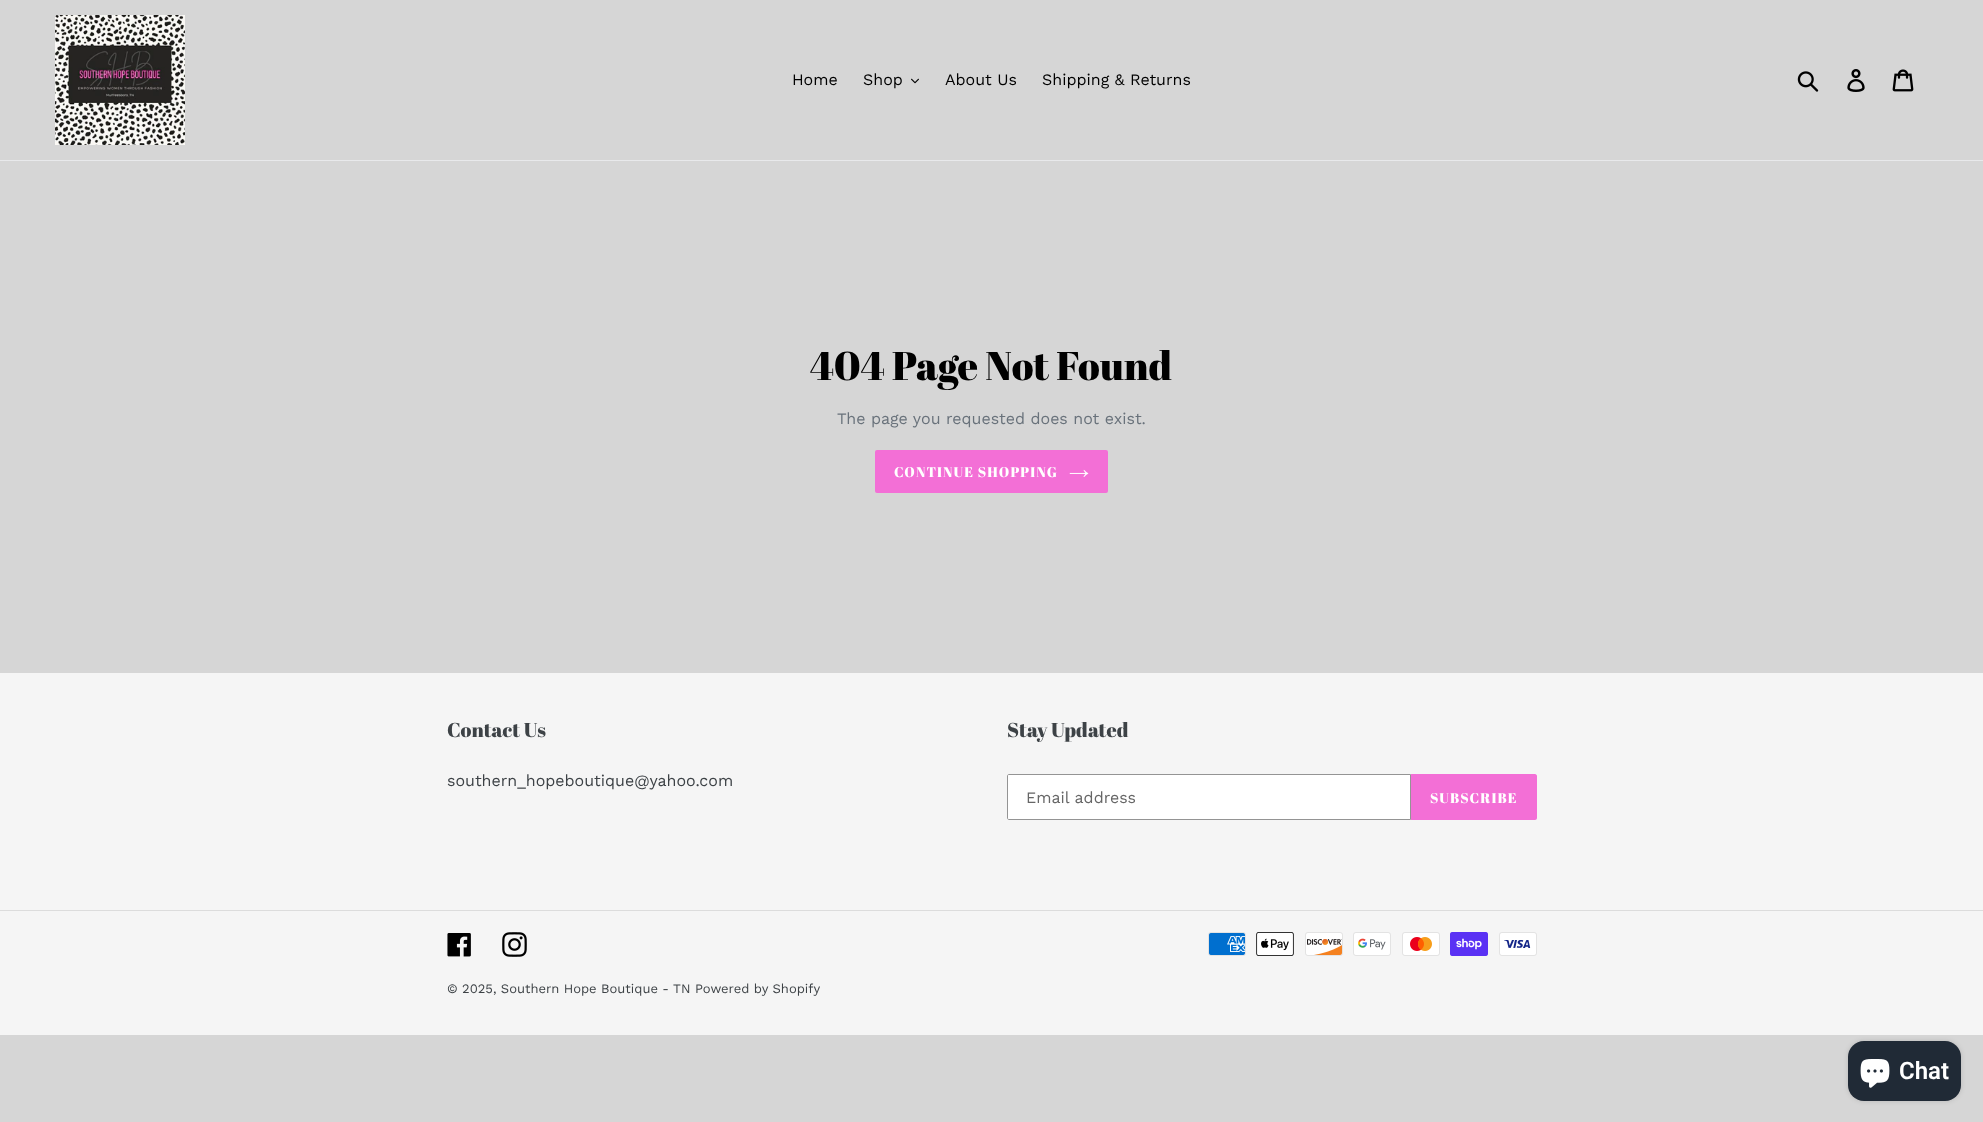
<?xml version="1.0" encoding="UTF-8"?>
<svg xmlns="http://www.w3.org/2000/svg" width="1983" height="1122">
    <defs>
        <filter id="blur1" x="-50%" y="-200%" width="200%" height="500%"><feGaussianBlur stdDeviation="2.5"/></filter>
    </defs>
    <rect width="100%" height="100%" fill="#D6D6D6"/>
    <rect x="0" y="160" width="1983" height="1" fill="#E8E9EB"/>
    <image x="55" y="15" width="130" height="130" href="img_01.png"/>
    <text x="792" y="85" font-family="Work Sans" font-size="16" fill="#000000">Home</text>
    <text x="863" y="85" font-family="Work Sans" font-size="16" fill="#000000">Shop</text>
    <image x="911" y="78" width="8" height="6" href="img_02.png"/>
    <text x="945" y="85" font-family="Work Sans" font-size="16" fill="#000000">About Us</text>
    <text x="1042" y="85" font-family="Work Sans" font-size="16" fill="#000000">Shipping &amp; Returns</text>
    <image x="1797" y="71" width="22" height="21" href="img_03.png"/>
    <image x="1847" y="69" width="18" height="23" href="img_04.png"/>
    <image x="1892" y="69" width="22" height="23" href="img_05.png"/>
    <text x="810" y="380" font-family="Abril Fatface" font-size="40" fill="#000000">404 Page Not Found</text>
    <text x="837" y="424" font-family="Work Sans" font-size="16" fill="#69727B">The page you requested does not exist.</text>
    <rect x="875" y="450" width="233" height="43" rx="2" fill="#F36FD6"/>
    <text x="894" y="477" font-family="Abril Fatface" font-size="14" letter-spacing="1.1" fill="#FFFFFF">CONTINUE SHOPPING</text>
    <image x="1069" y="469" width="20" height="8" href="img_06.png"/>
    <rect x="0" y="673" width="1983" height="362" fill="#F5F5F5"/>
    <text x="447" y="737" font-family="Abril Fatface" font-size="20" fill="#3D4246">Contact Us</text>
    <text x="447" y="786" font-family="Work Sans" font-size="16" fill="#3D4246">southern_hopeboutique@yahoo.com</text>
    <text x="1007" y="737" font-family="Abril Fatface" font-size="20" fill="#3D4246">Stay Updated</text>
    <path d="M 1009 774.5 H 1410.5 V 819.5 H 1009 C 1008 819.5 1007.5 819 1007.5 818 V 776 C 1007.5 775 1008 774.5 1009 774.5 Z" fill="#FFFFFF" stroke="#949494"/>
    <text x="1026" y="803" font-family="Work Sans" font-size="16" fill="#666666">Email address</text>
    <path d="M 1411 774 H 1535 C 1536 774 1537 775 1537 776 V 818 C 1537 819 1536 820 1535 820 H 1411 Z" fill="#F36FD6"/>
    <text x="1430" y="803" font-family="Abril Fatface" font-size="14" letter-spacing="1.1" fill="#FFFFFF">SUBSCRIBE</text>
    <rect x="0" y="910" width="1983" height="1" fill="#DCDCDC"/>
    <image x="447" y="933" width="24" height="24" href="img_07.png"/>
    <image x="502" y="932" width="25" height="25" href="img_08.png"/>
    <image x="1208" y="932" width="38" height="24" href="img_09.png"/>
    <image x="1256" y="932" width="38" height="24" href="img_10.png"/>
    <image x="1305" y="932" width="38" height="24" href="img_11.png"/>
    <image x="1353" y="932" width="38" height="24" href="img_12.png"/>
    <image x="1402" y="932" width="38" height="24" href="img_13.png"/>
    <image x="1450" y="932" width="38" height="24" href="img_14.png"/>
    <image x="1499" y="932" width="38" height="24" href="img_15.png"/>
    <text x="447" y="993" font-family="Work Sans" font-size="13" fill="#3D4246">© 2025, Southern Hope Boutique - TN</text>
    <text x="695" y="993" font-family="Work Sans" font-size="13" fill="#3D4246">Powered by Shopify</text>
    <rect x="1848" y="1041" width="113" height="60" rx="16" fill="#000000" fill-opacity="0.15" filter="url(#blur1)"/>
    <rect x="1848" y="1041" width="113" height="60" rx="16" fill="#202A36"/>
    <image x="1860" y="1059" width="30" height="29" href="img_16.png"/>
    <text x="1899" y="1079" font-family="Roboto" font-size="24" font-weight="600" fill="#FFFFFF">Chat</text>
</svg>
